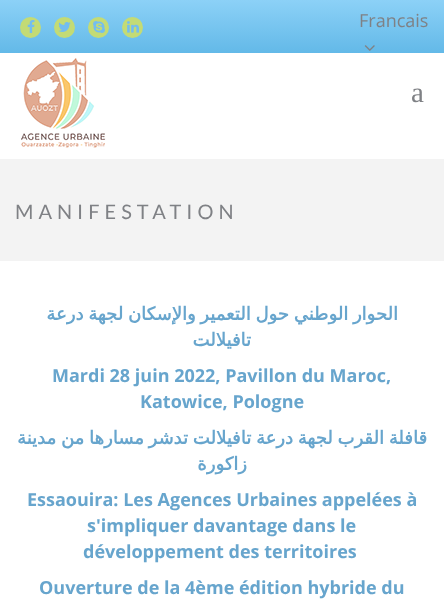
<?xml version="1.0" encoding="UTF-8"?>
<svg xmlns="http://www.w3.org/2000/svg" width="444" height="606">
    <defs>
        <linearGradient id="g1" gradientUnits="userSpaceOnUse" x1="222" y1="0" x2="222" y2="53"><stop offset="0" stop-color="#8CD1F7"/><stop offset="1" stop-color="#63B9E8"/></linearGradient>
    </defs>
    <rect width="100%" height="100%" fill="#FFFFFF"/>
    <rect x="0" y="0" width="444" height="53" fill="url(#g1)"/>
    <circle cx="30.5" cy="27.5" r="10.5" fill="#C3DB75"/>
    <image x="27" y="20" width="8" height="13" href="img_01.png"/>
    <circle cx="64.5" cy="27.5" r="10.5" fill="#C3DB75"/>
    <image x="58" y="22" width="13" height="10" href="img_02.png"/>
    <circle cx="98.5" cy="27.5" r="10.5" fill="#C3DB75"/>
    <image x="93" y="21" width="12" height="12" href="img_03.png"/>
    <circle cx="132.5" cy="27.5" r="10.5" fill="#C3DB75"/>
    <image x="127" y="21" width="12" height="12" href="img_04.png"/>
    <text x="359" y="27" font-family="Open Sans" font-size="18" fill="#7F8185">Francais</text>
    <image x="364" y="45" width="11" height="6" href="img_05.png"/>
    <image x="21" y="58" width="85" height="90" href="img_06.png"/>
    <text x="411" y="102" font-family="Liberation Serif" font-size="29" fill="#7F8185">a</text>
    <rect x="0" y="159" width="444" height="102" fill="#F3F3F3"/>
    <text x="15" y="219" font-family="Lato" font-size="20" letter-spacing="5" fill="#7F8185">MANIFESTATION</text>
    <text x="398" y="320" word-spacing="-1" font-family="DejaVu Sans" font-size="18" font-weight="700" direction="rtl" fill="#67A5CD">الحوار الوطني حول التعمير والإسكان لجهة درعة</text>
    <text x="251" y="346" font-family="DejaVu Sans" font-size="18" font-weight="700" direction="rtl" fill="#67A5CD">تافيلالت</text>
    <text x="52" y="382" font-family="Open Sans" font-size="18" font-weight="700" fill="#67A5CD">Mardi 28 juin 2022, Pavillon du Maroc,</text>
    <text x="140" y="408" font-family="Open Sans" font-size="18" font-weight="700" fill="#67A5CD">Katowice, Pologne</text>
    <text x="427" y="444" word-spacing="-1" font-family="DejaVu Sans" font-size="18" font-weight="700" direction="rtl" fill="#67A5CD">قافلة القرب لجهة درعة تافيلالت تدشر مسارها من مدينة</text>
    <text x="247" y="470" font-family="DejaVu Sans" font-size="18" font-weight="700" direction="rtl" fill="#67A5CD">زاكورة</text>
    <text x="27" y="506" font-family="Open Sans" font-size="18" font-weight="700" fill="#67A5CD">Essaouira: Les Agences Urbaines appelées à</text>
    <text x="87" y="532" font-family="Open Sans" font-size="18" font-weight="700" fill="#67A5CD">s'impliquer davantage dans le</text>
    <text x="83" y="558" font-family="Open Sans" font-size="18" font-weight="700" fill="#67A5CD">développement des territoires</text>
    <text x="39" y="594" font-family="Open Sans" font-size="18" font-weight="700" fill="#67A5CD">Ouverture de la 4ème édition hybride du</text>
</svg>
